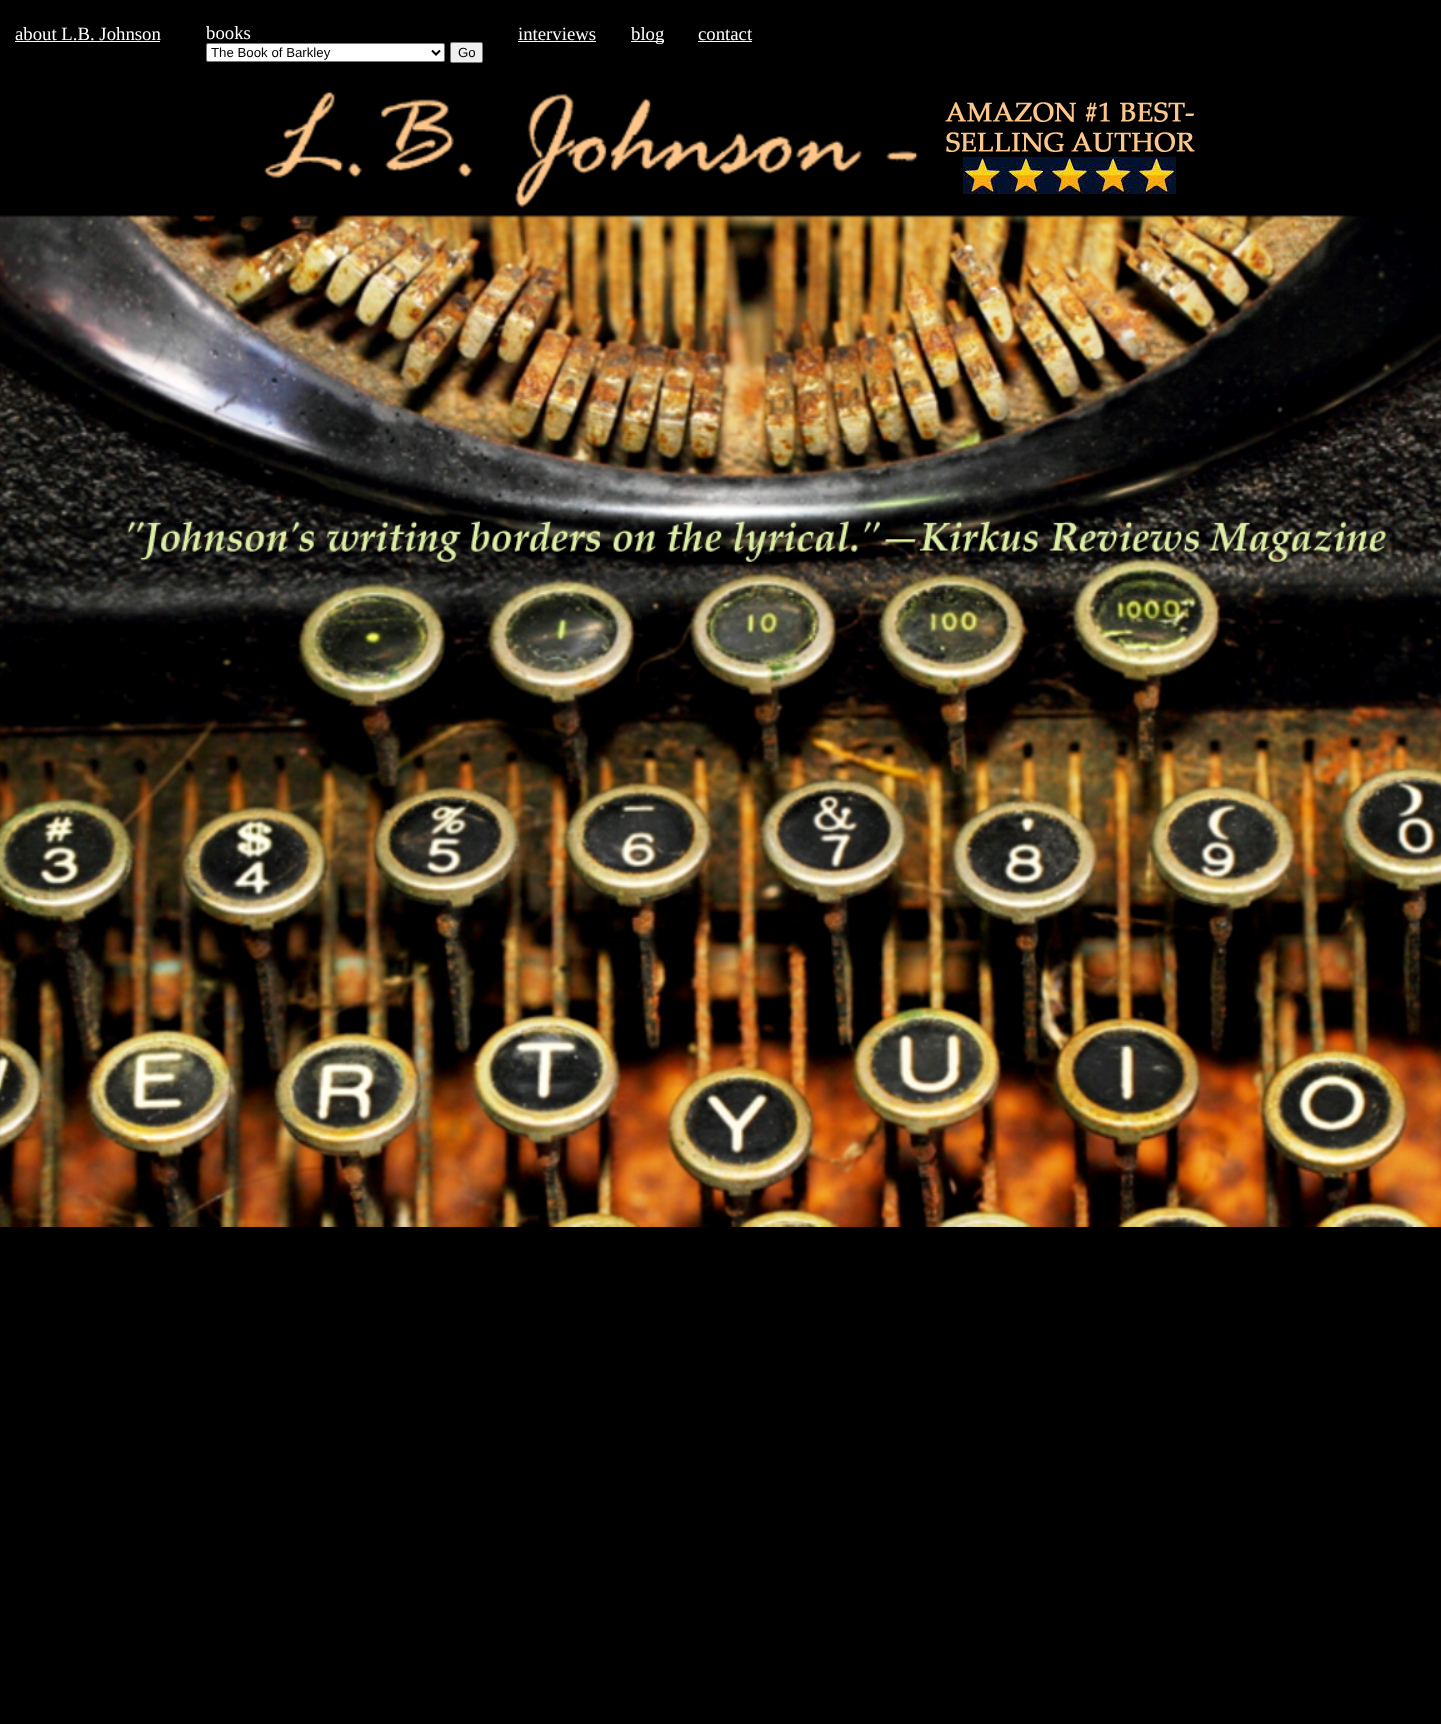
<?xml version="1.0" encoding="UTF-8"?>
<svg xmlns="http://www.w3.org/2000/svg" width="1441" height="1724">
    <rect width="100%" height="100%" fill="#000000"/>
    <text x="15" y="40" font-family="Liberation Serif" font-size="18.75" fill="#FFFFFF">about L.B. Johnson</text>
    <rect x="15" y="41" width="145" height="1" fill="#FFFFFF"/>
    <text x="206" y="39" font-family="Liberation Serif" font-size="18.75" fill="#FFFFFF">books</text>
    <rect x="206.5" y="43.5" width="238" height="18" rx="1.5" fill="#FFFFFF" stroke="#767676"/>
    <path d="M 432 50.5 L 436 54.5 L 440 50.5" fill="none" stroke="#000000" stroke-width="2"/>
    <text x="211" y="57" font-family="Liberation Sans" font-size="13.25" fill="#000000">The Book of Barkley</text>
    <rect x="450.5" y="42.5" width="32" height="20" rx="1.5" fill="#EFEFEF" stroke="#767676"/>
    <text x="458" y="57" font-family="Liberation Sans" font-size="13.25" fill="#000000">Go</text>
    <text x="518" y="40" font-family="Liberation Serif" font-size="18.75" fill="#FFFFFF">interviews</text>
    <rect x="518" y="41" width="78" height="1" fill="#FFFFFF"/>
    <rect x="631" y="41" width="33" height="1" fill="#FFFFFF"/>
    <text x="631" y="40" font-family="Liberation Serif" font-size="18.75" fill="#FFFFFF">blog</text>
    <text x="698" y="40" font-family="Liberation Serif" font-size="18.75" fill="#FFFFFF">contact</text>
    <rect x="698" y="41" width="54" height="1" fill="#FFFFFF"/>
    <image x="0" y="91" width="1441" height="1136" href="img_01.png"/>
</svg>
